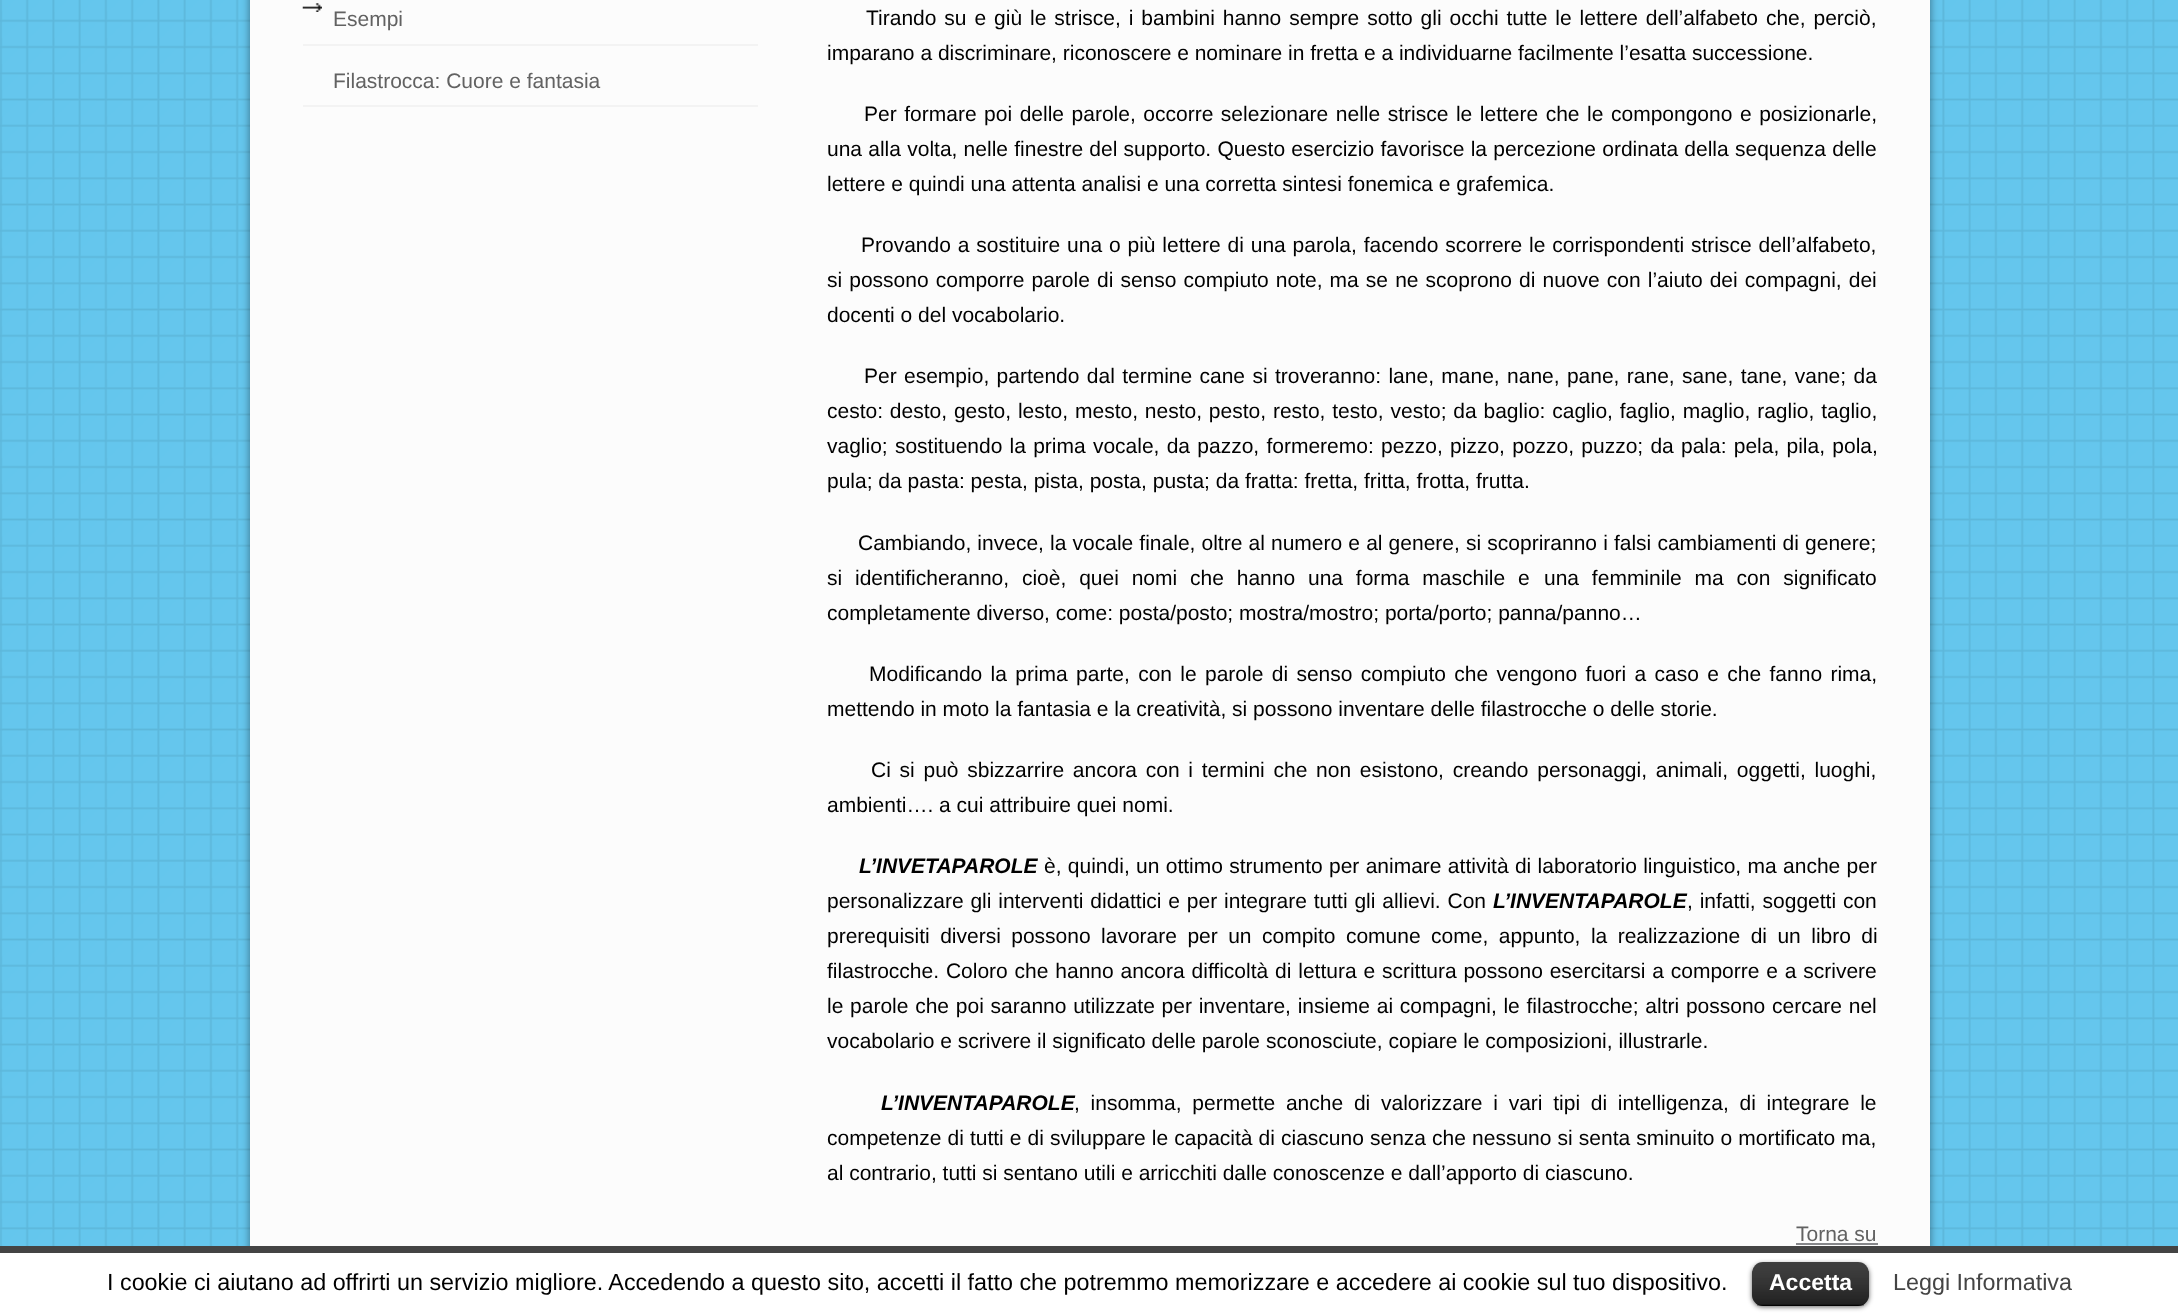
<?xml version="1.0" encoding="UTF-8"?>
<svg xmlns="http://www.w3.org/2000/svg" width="2178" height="1313">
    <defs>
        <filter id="blur1" x="-50%" y="-200%" width="200%" height="500%"><feGaussianBlur stdDeviation="4.5"/></filter>
        <filter id="blur2" x="-50%" y="-200%" width="200%" height="500%"><feGaussianBlur stdDeviation="2.5"/></filter>
    </defs>
    <rect width="100%" height="100%" fill="#63C6ED"/>
    <image x="0" y="0" width="2178" height="1246" href="img_01.png"/>
    <rect x="250" y="-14" width="1680" height="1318" fill="#000000" fill-opacity="0.45" filter="url(#blur1)"/>
    <rect x="250" y="0" width="1680" height="1246" fill="#FCFCFC"/>
    <image x="302" y="3" width="20" height="9" href="img_02.png"/>
    <rect x="303" y="44" width="455" height="2" fill="#F3F3F3"/>
    <text x="333" y="26" font-family="Liberation Sans" font-size="21" fill="#626262">Esempi</text>
    <rect x="303" y="105" width="455" height="2" fill="#F3F3F3"/>
    <text x="333" y="88" font-family="Liberation Sans" font-size="21" fill="#626262">Filastrocca: Cuore e fantasia</text>
    <text x="866" y="25" word-spacing="2.1" font-family="Liberation Sans" font-size="21" fill="#000000">Tirando su e giù le strisce, i bambini hanno sempre sotto gli occhi tutte le lettere dell’alfabeto che, perciò,</text>
    <text x="827" y="60" font-family="Liberation Sans" font-size="21" fill="#000000">imparano a discriminare, riconoscere e nominare in fretta e a individuarne facilmente l’esatta successione.</text>
    <text x="864" y="121" word-spacing="1.7" font-family="Liberation Sans" font-size="21" fill="#000000">Per formare poi delle parole, occorre selezionare nelle strisce le lettere che le compongono e posizionarle,</text>
    <text font-family="Liberation Sans" font-size="21" fill="#000000">
        <tspan x="827" y="156" word-spacing="0.4">una alla volta, nelle finestre del supporto. Questo esercizio favorisce la percezione ordinata della sequenza delle</tspan>
        <tspan x="827" y="191">lettere e quindi una attenta analisi e una corretta sintesi fonemica e grafemica.</tspan>
    </text>
    <text x="861" y="252" word-spacing="1" font-family="Liberation Sans" font-size="21" fill="#000000">Provando a sostituire una o più lettere di una parola, facendo scorrere le corrispondenti strisce dell’alfabeto,</text>
    <text font-family="Liberation Sans" font-size="21" fill="#000000">
        <tspan x="827" y="287" word-spacing="1.25">si possono comporre parole di senso compiuto note, ma se ne scoprono di nuove con l’aiuto dei compagni, dei</tspan>
        <tspan x="827" y="322">docenti o del vocabolario.</tspan>
    </text>
    <text x="864" y="383" word-spacing="1.5" font-family="Liberation Sans" font-size="21" fill="#000000">Per esempio, partendo dal termine cane si troveranno: lane, mane, nane, pane, rane, sane, tane, vane; da</text>
    <text font-family="Liberation Sans" font-size="21" fill="#000000">
        <tspan x="827" y="418" word-spacing="1">cesto: desto, gesto, lesto, mesto, nesto, pesto, resto, testo, vesto; da baglio: caglio, faglio, maglio, raglio, taglio,</tspan>
        <tspan x="827" y="453" word-spacing="1.4">vaglio; sostituendo la prima vocale, da pazzo, formeremo: pezzo, pizzo, pozzo, puzzo; da pala: pela, pila, pola,</tspan>
        <tspan x="827" y="488">pula; da pasta: pesta, pista, posta, pusta; da fratta: fretta, fritta, frotta, frutta.</tspan>
    </text>
    <text x="858" y="550" word-spacing="0.3" font-family="Liberation Sans" font-size="21" fill="#000000">Cambiando, invece, la vocale finale, oltre al numero e al genere, si scopriranno i falsi cambiamenti di genere;</text>
    <text x="827" y="585" word-spacing="7" font-family="Liberation Sans" font-size="21" fill="#000000">si identificheranno, cioè, quei nomi che hanno una forma maschile e</text>
    <text x="1544" y="585" word-spacing="7" font-family="Liberation Sans" font-size="21" fill="#000000">una femminile ma con significato</text>
    <text x="827" y="620" font-family="Liberation Sans" font-size="21" fill="#000000">completamente diverso, come: posta/posto; mostra/mostro; porta/porto; panna/panno…</text>
    <text x="869" y="681" word-spacing="2.5" font-family="Liberation Sans" font-size="21" fill="#000000">Modificando la prima parte, con le parole di senso compiuto che vengono fuori a caso e che fanno rima,</text>
    <text x="827" y="716" font-family="Liberation Sans" font-size="21" fill="#000000">mettendo in moto la fantasia e la creatività, si possono inventare delle filastrocche o delle storie.</text>
    <text x="871" y="777" word-spacing="2.9" font-family="Liberation Sans" font-size="21" fill="#000000">Ci si può sbizzarrire ancora con i termini che non esistono, creando personaggi, animali, oggetti, luoghi,</text>
    <text x="827" y="812" font-family="Liberation Sans" font-size="21" fill="#000000">ambienti…. a cui attribuire quei nomi.</text>
    <text x="859" y="873" font-family="Liberation Sans" font-size="21" font-weight="700" font-style="italic" fill="#000000">L’INVETAPAROLE</text>
    <text x="1044" y="873" word-spacing="0.5" font-family="Liberation Sans" font-size="21" fill="#000000">è, quindi, un ottimo strumento per animare attività di laboratorio linguistico, ma anche per</text>
    <text x="827" y="908" word-spacing="1" font-family="Liberation Sans" font-size="21" fill="#000000">personalizzare gli interventi didattici e per integrare tutti gli allievi. Con</text>
    <text x="1493" y="908" font-family="Liberation Sans" font-size="21" font-weight="700" font-style="italic" fill="#000000">L’INVENTAPAROLE</text>
    <text x="1687" y="908" word-spacing="1" font-family="Liberation Sans" font-size="21" fill="#000000">, infatti, soggetti con</text>
    <text font-family="Liberation Sans" font-size="21" fill="#000000">
        <tspan x="827" y="943" word-spacing="4.6">prerequisiti diversi possono lavorare per un compito comune come, appunto, la realizzazione di un libro di</tspan>
        <tspan x="827" y="978" word-spacing="1">filastrocche. Coloro che hanno ancora difficoltà di lettura e scrittura possono esercitarsi a comporre e a scrivere</tspan>
        <tspan x="827" y="1013" word-spacing="0.9">le parole che poi saranno utilizzate per inventare, insieme ai compagni, le filastrocche; altri possono cercare nel</tspan>
        <tspan x="827" y="1048">vocabolario e scrivere il significato delle parole sconosciute, copiare le composizioni, illustrarle.</tspan>
    </text>
    <text x="881" y="1110" font-family="Liberation Sans" font-size="21" font-weight="700" font-style="italic" fill="#000000">L’INVENTAPAROLE</text>
    <text x="1074" y="1110" word-spacing="4.9" font-family="Liberation Sans" font-size="21" fill="#000000">, insomma, permette anche di valorizzare i vari tipi di intelligenza, di integrare le</text>
    <text font-family="Liberation Sans" font-size="21" fill="#000000">
        <tspan x="827" y="1145" word-spacing="0.25">competenze di tutti e di sviluppare le capacità di ciascuno senza che nessuno si senta sminuito o mortificato ma,</tspan>
        <tspan x="827" y="1180">al contrario, tutti si sentano utili e arricchiti dalle conoscenze e dall’apporto di ciascuno.</tspan>
    </text>
    <text x="1796" y="1241" font-family="Liberation Sans" font-size="21" fill="#626262">Torna su</text>
    <rect x="1796" y="1243" width="82" height="2" fill="#86878A"/>
    <rect x="0" y="1253" width="2178" height="60" fill="#FFFFFF"/>
    <rect x="0" y="1246" width="2178" height="7" fill="#444444"/>
    <text x="107" y="1290" font-family="Liberation Sans" font-size="23.33" fill="#000000">I cookie ci aiutano ad offrirti un servizio migliore. Accedendo a questo sito, accetti il fatto che potremmo memorizzare e accedere ai cookie sul tuo dispositivo.</text>
    <rect x="1752" y="1264" width="117" height="43" rx="11" fill="#000000" fill-opacity="0.6" filter="url(#blur2)"/>
    <rect x="1752" y="1262" width="117" height="44" rx="11" fill="#000000"/>
    <image x="1752" y="1262" width="117" height="44" href="img_03.png"/>
    <rect x="1757" y="1304" width="107" height="2" fill="#000000" fill-opacity="0.25"/>
    <text x="1769" y="1290" font-family="Liberation Sans" font-size="23" font-weight="700" fill="#FFFFFF">Accetta</text>
    <text x="1893" y="1290" font-family="Liberation Sans" font-size="23.33" fill="#444444">Leggi Informativa</text>
</svg>
